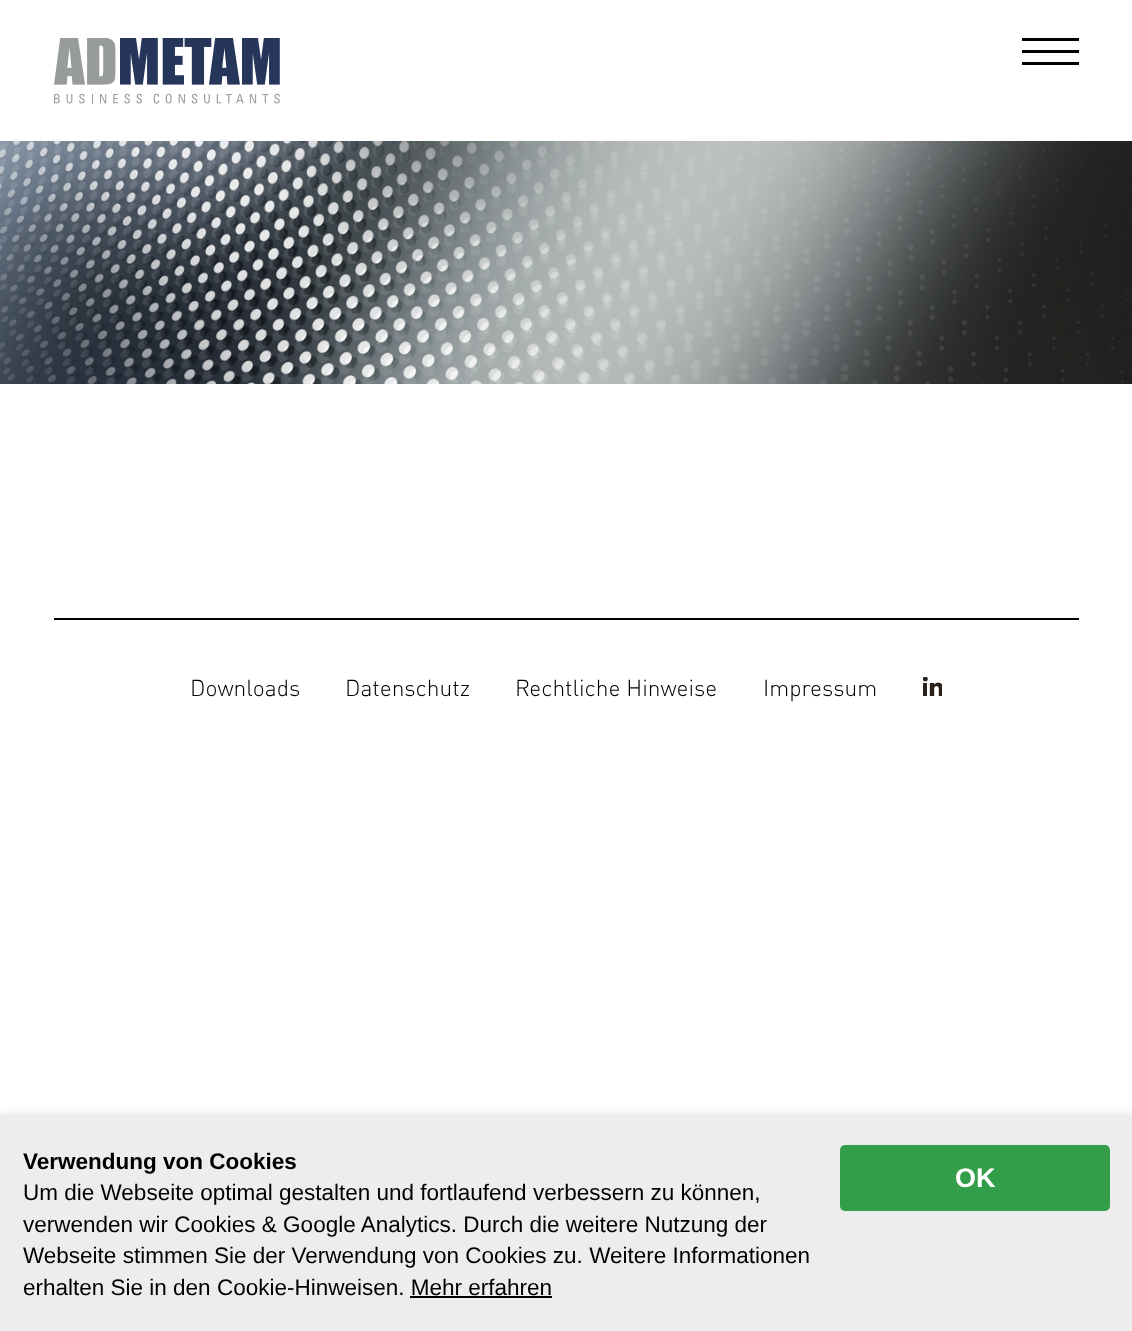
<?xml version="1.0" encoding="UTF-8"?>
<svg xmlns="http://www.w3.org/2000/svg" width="1132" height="1331">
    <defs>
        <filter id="blur1" x="-50%" y="-200%" width="200%" height="500%"><feGaussianBlur stdDeviation="4.5"/></filter>
    </defs>
    <rect width="100%" height="100%" fill="#FFFFFF"/>
    <image x="54" y="38" width="226" height="66" href="img_01.png"/>
    <rect x="1022" y="38" width="57" height="3" fill="#000000"/>
    <rect x="1022" y="50" width="57" height="3" fill="#000000"/>
    <rect x="1022" y="62" width="57" height="3" fill="#000000"/>
    <image x="0" y="141" width="1132" height="243" href="img_02.png"/>
    <rect x="54" y="618" width="1025" height="2" fill="#000000"/>
    <text x="190" y="696" font-family="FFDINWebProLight" font-size="22.75" fill="#000000">Downloads</text>
    <text x="345" y="696" font-family="FFDINWebProLight" font-size="22.75" fill="#000000">Datenschutz</text>
    <text x="515" y="696" font-family="FFDINWebProLight" font-size="22.75" fill="#000000">Rechtliche Hinweise</text>
    <text x="763" y="696" font-family="FFDINWebProLight" font-size="22.75" fill="#000000">Impressum</text>
    <image x="923" y="677" width="19" height="19" href="img_03.png"/>
    <rect x="0" y="1115" width="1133" height="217" fill="#000000" fill-opacity="0.15" filter="url(#blur1)"/>
    <rect x="0" y="1115" width="1132" height="216" fill="#EDEDED"/>
    <text x="23" y="1169" font-family="Liberation Sans" font-size="22.5" font-weight="700" fill="#000000">Verwendung von Cookies</text>
    <text font-family="Liberation Sans" font-size="22.5" fill="#000000">
        <tspan x="23" y="1200">Um die Webseite optimal gestalten und fortlaufend verbessern zu können,</tspan>
        <tspan x="23" y="1232">verwenden wir Cookies &amp; Google Analytics. Durch die weitere Nutzung der</tspan>
        <tspan x="23" y="1263">Webseite stimmen Sie der Verwendung von Cookies zu. Weitere Informationen</tspan>
        <tspan x="23" y="1295">erhalten Sie in den Cookie-Hinweisen. Mehr erfahren</tspan>
    </text>
    <rect x="410" y="1296" width="142" height="2" fill="#000000"/>
    <rect x="840" y="1145" width="270" height="66" rx="5" fill="#329E49"/>
    <text x="955" y="1187" font-family="Liberation Sans" font-size="27" font-weight="700" fill="#FFFFFF">OK</text>
</svg>
